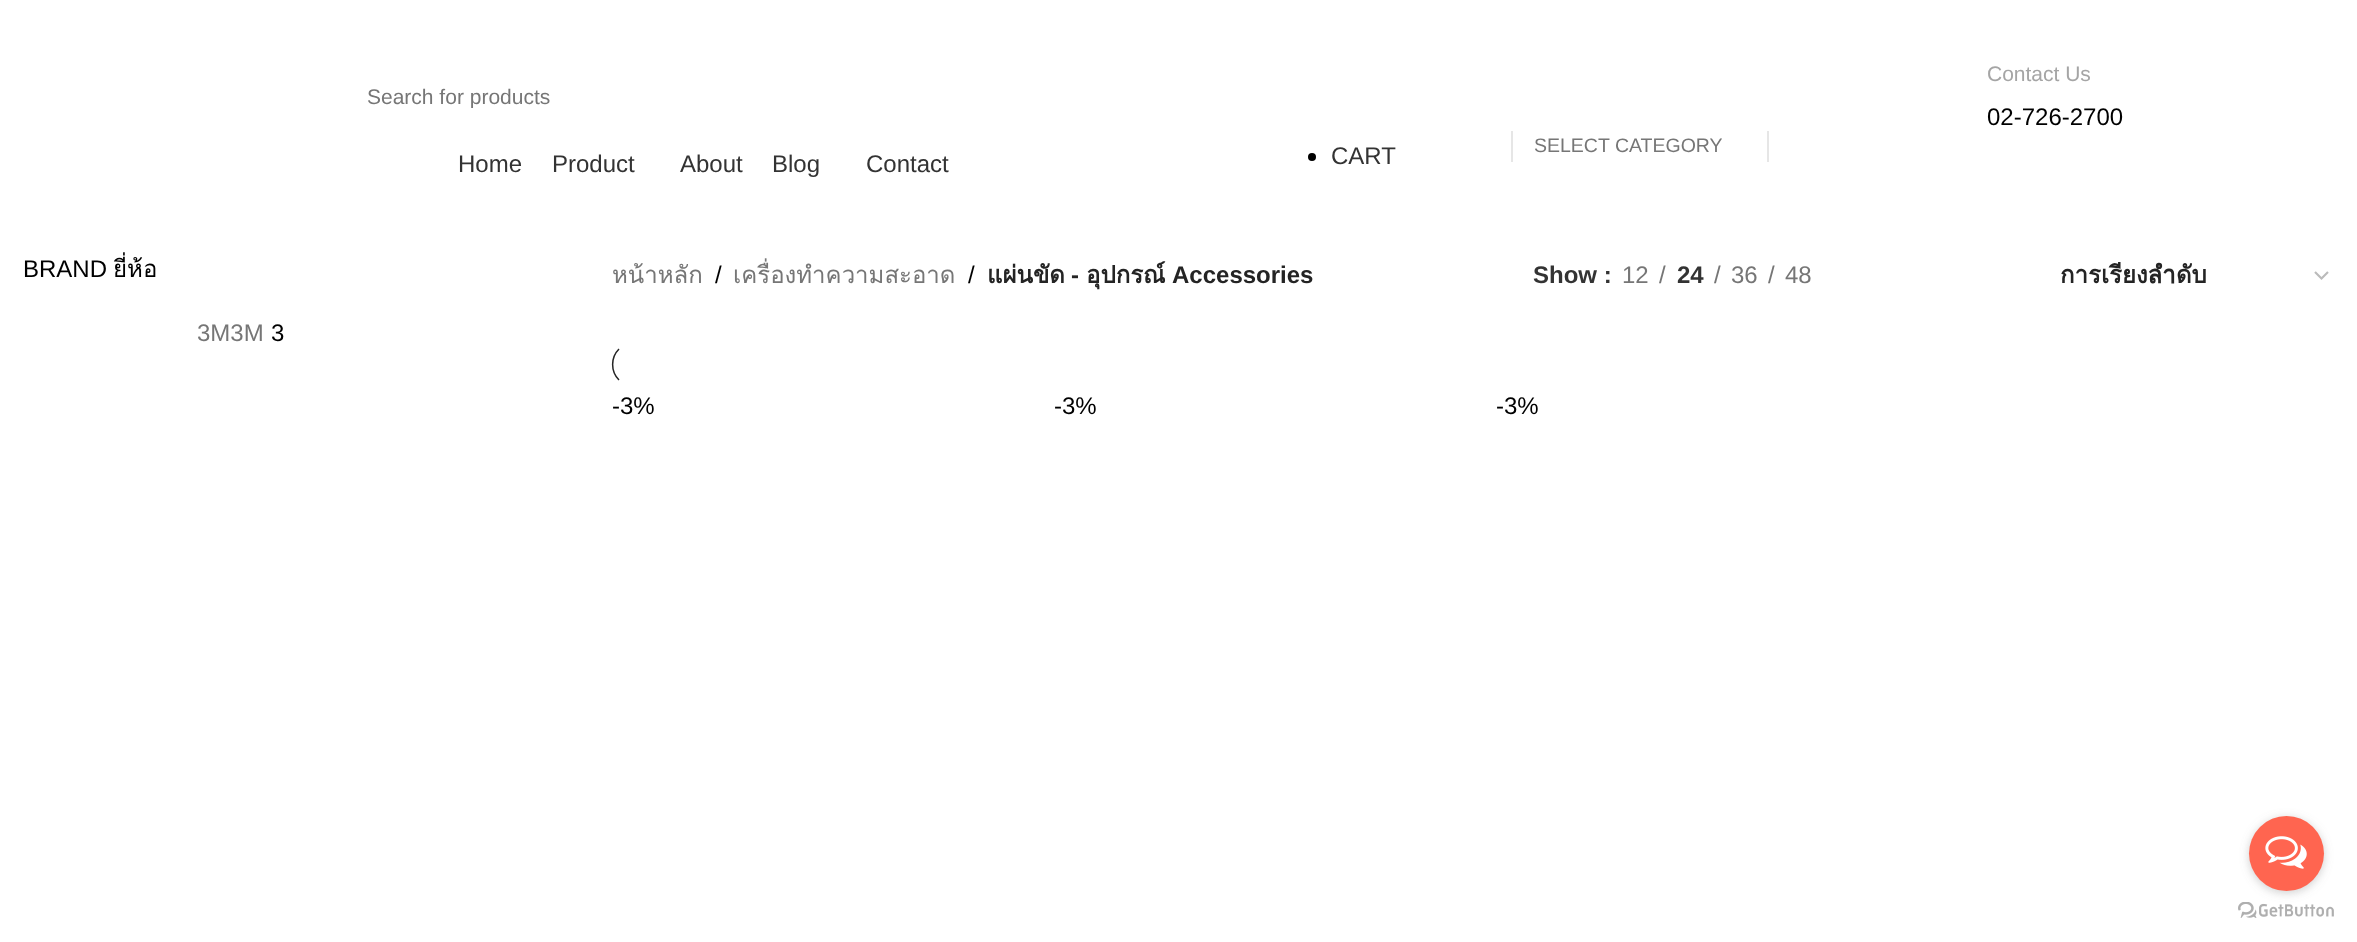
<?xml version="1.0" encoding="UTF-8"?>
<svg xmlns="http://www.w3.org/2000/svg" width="2357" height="942">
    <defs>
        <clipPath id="clip1"><rect x="368" y="84" width="1098" height="24"/></clipPath>
        <filter id="blur1" x="-50%" y="-200%" width="200%" height="500%"><feGaussianBlur stdDeviation="5"/></filter>
    </defs>
    <rect width="100%" height="100%" fill="#FFFFFF"/>
    <g clip-path="url(#clip1)">
        <text x="367" y="104" font-family="Liberation Sans" font-size="21" fill="#767676">Search for products</text>
    </g>
    <rect x="1767" y="131" width="2" height="31" fill="#E6E6E6"/>
    <rect x="1511" y="131" width="2" height="31" fill="#E6E6E6"/>
    <text x="1534" y="152" font-family="Liberation Sans" font-size="19.5" fill="#767676">SELECT CATEGORY</text>
    <text x="1987" y="81" font-family="Liberation Sans" font-size="21" fill="#A5A5A5">Contact Us</text>
    <text x="1987" y="125" font-family="Liberation Sans" font-size="24" fill="#000000">02-726-2700</text>
    <text x="458" y="172" font-family="Liberation Sans" font-size="24" fill="#333333">Home</text>
    <text x="552" y="172" font-family="Liberation Sans" font-size="24" fill="#333333">Product</text>
    <text x="680" y="172" font-family="Liberation Sans" font-size="24" fill="#333333">About</text>
    <text x="772" y="172" font-family="Liberation Sans" font-size="24" fill="#333333">Blog</text>
    <text x="866" y="172" font-family="Liberation Sans" font-size="24" fill="#333333">Contact</text>
    <circle cx="1312" cy="157" r="4" fill="#000000"/>
    <text x="1331" y="164" font-family="Liberation Sans" font-size="24" fill="#333333">CART</text>
    <text x="23" y="277" font-family="Liberation Sans" font-size="24" fill="#000000">BRAND</text>
    <text x="113" y="277" font-family="Loma" font-size="24" fill="#000000">ยี่ห้อ</text>
    <text x="197" y="341" font-family="Liberation Sans" font-size="24" fill="#767676">3M3M</text>
    <text x="271" y="341" font-family="Liberation Sans" font-size="24" fill="#000000">3</text>
    <text x="612" y="283" font-family="Loma" font-size="24" fill="#767676">หน้าหลัก</text>
    <text x="715" y="283" font-family="Liberation Sans" font-size="24" fill="#000000">/</text>
    <text x="733" y="283" font-family="Loma" font-size="24" fill="#767676">เครื่องทำความสะอาด</text>
    <text x="968" y="283" font-family="Liberation Sans" font-size="24" fill="#000000">/</text>
    <text x="987" y="283" font-family="Loma" font-size="24" font-weight="700" fill="#242424">แผ่นขัด</text>
    <text x="1071" y="283" font-family="Liberation Sans" font-size="24" font-weight="700" fill="#242424">-</text>
    <text x="1086" y="283" font-family="Loma" font-size="24" font-weight="700" fill="#242424">อุปกรณ์</text>
    <text x="1172" y="283" font-family="Liberation Sans" font-size="24" font-weight="700" fill="#242424">Accessories</text>
    <text x="1533" y="283" font-family="Liberation Sans" font-size="24" font-weight="700" fill="#333333">Show :</text>
    <text x="1622" y="283" font-family="Liberation Sans" font-size="24" fill="#767676">12</text>
    <text x="1659" y="283" font-family="Liberation Sans" font-size="24" fill="#767676">/</text>
    <text x="1677" y="283" font-family="Liberation Sans" font-size="24" font-weight="700" fill="#333333">24</text>
    <text x="1714" y="283" font-family="Liberation Sans" font-size="24" fill="#767676">/</text>
    <text x="1731" y="283" font-family="Liberation Sans" font-size="24" fill="#767676">36</text>
    <text x="1768" y="283" font-family="Liberation Sans" font-size="24" fill="#767676">/</text>
    <text x="1785" y="283" font-family="Liberation Sans" font-size="24" fill="#767676">48</text>
    <path d="M 2315 272 L 2321.5 278.5 L 2328 272" fill="none" stroke="#BBBBBB" stroke-width="2.2"/>
    <text x="2060" y="283" font-family="Loma" font-size="24" font-weight="700" fill="#242424">การเรียงลำดับ</text>
    <path d="M 619 380 C 610.5 371.5 610.5 357.5 619 349" fill="none" stroke="#242424" stroke-width="1.5"/>
    <text x="612" y="414" font-family="Liberation Sans" font-size="24" fill="#000000">-3%</text>
    <text x="1054" y="414" font-family="Liberation Sans" font-size="24" fill="#000000">-3%</text>
    <text x="1496" y="414" font-family="Liberation Sans" font-size="24" fill="#000000">-3%</text>
    <image x="2238" y="902" width="96" height="16" href="img_02.png"/>
    <rect x="2249" y="818" width="75" height="75" rx="37.5" fill="#888888" fill-opacity="0.4" filter="url(#blur1)"/>
    <circle cx="2286.5" cy="853.5" r="37.5" fill="#FF6550"/>
    <image x="2265" y="836" width="42" height="33" href="img_01.png"/>
</svg>
